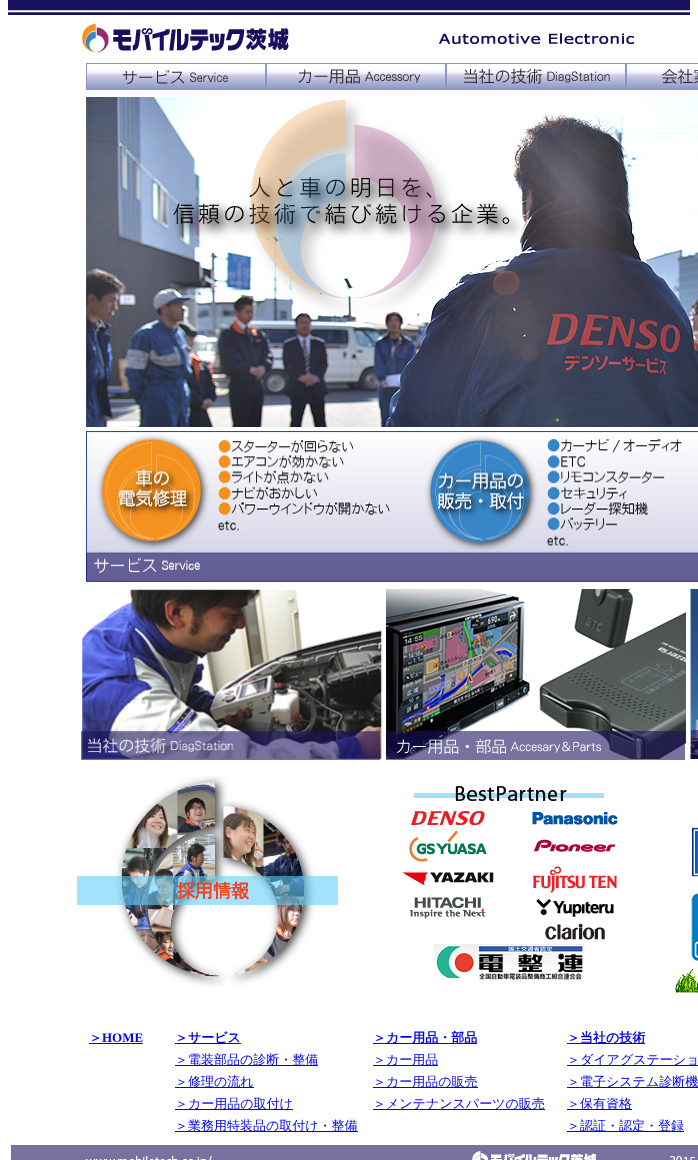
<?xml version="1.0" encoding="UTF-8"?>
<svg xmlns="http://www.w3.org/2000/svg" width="698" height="1160">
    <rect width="100%" height="100%" fill="#FFFFFF"/>
    <image x="8" y="0" width="682" height="15" href="img_01.png"/>
    <image x="82" y="24" width="207" height="29" href="img_02.png"/>
    <image x="438" y="33" width="196" height="11" href="img_03.png"/>
    <image x="86" y="63" width="180" height="27" href="img_04.png"/>
    <image x="266" y="63" width="180" height="27" href="img_05.png"/>
    <image x="446" y="63" width="180" height="27" href="img_06.png"/>
    <image x="626" y="63" width="72" height="27" href="img_07.png"/>
    <image x="86" y="97" width="612" height="330" href="img_08.png"/>
    <image x="86" y="431" width="612" height="151" href="img_09.png"/>
    <image x="81" y="589" width="301" height="171" href="img_10.png"/>
    <image x="386" y="589" width="300" height="171" href="img_11.png"/>
    <image x="690" y="589" width="8" height="170" href="img_12.png"/>
    <image x="77" y="776" width="261" height="211" href="img_13.png"/>
    <image x="414" y="786" width="190" height="15" href="img_14.png"/>
    <image x="411" y="811" width="74" height="15" href="img_15.png"/>
    <image x="532" y="812" width="86" height="13" href="img_16.png"/>
    <image x="409" y="830" width="78" height="32" href="img_17.png"/>
    <image x="534" y="839" width="82" height="13" href="img_18.png"/>
    <image x="402" y="872" width="92" height="14" href="img_19.png"/>
    <image x="533" y="866" width="84" height="27" href="img_20.png"/>
    <image x="409" y="897" width="77" height="22" href="img_21.png"/>
    <image x="536" y="899" width="78" height="18" href="img_22.png"/>
    <image x="545" y="923" width="60" height="17" href="img_23.png"/>
    <image x="434" y="944" width="150" height="36" href="img_24.png"/>
    <image x="675" y="825" width="23" height="168" href="img_25.png"/>
    <text x="89" y="1042" font-family="WenQuanYi Zen Hei" font-size="13" font-weight="700" fill="#0000EE">＞</text>
    <rect x="89" y="1043" width="54" height="1" fill="#0000EE"/>
    <text x="102" y="1042" font-family="Liberation Serif" font-size="13" font-weight="700" fill="#0000EE">HOME</text>
    <rect x="175" y="1043" width="66" height="1" fill="#0000EE"/>
    <text x="175" y="1042" font-family="WenQuanYi Zen Hei" font-size="13" font-weight="700" fill="#0000EE">＞サービス</text>
    <rect x="373" y="1043" width="104" height="1" fill="#0000EE"/>
    <text x="373" y="1042" font-family="WenQuanYi Zen Hei" font-size="13" font-weight="700" fill="#0000EE">＞カー用品・部品</text>
    <rect x="567" y="1043" width="78" height="1" fill="#0000EE"/>
    <text x="567" y="1042" font-family="WenQuanYi Zen Hei" font-size="13" font-weight="700" fill="#0000EE">＞当社の技術</text>
    <rect x="175" y="1065" width="143" height="1" fill="#0000EE"/>
    <text x="175" y="1064" font-family="WenQuanYi Zen Hei" font-size="13" font-weight="500" fill="#0000EE">＞電装部品の診断・整備</text>
    <rect x="373" y="1065" width="65" height="1" fill="#0000EE"/>
    <text x="373" y="1064" font-family="WenQuanYi Zen Hei" font-size="13" font-weight="500" fill="#0000EE">＞カー用品</text>
    <rect x="567" y="1065" width="131" height="1" fill="#0000EE"/>
    <text x="567" y="1064" font-family="WenQuanYi Zen Hei" font-size="13" font-weight="500" fill="#0000EE">＞ダイアグステーショ</text>
    <rect x="175" y="1087" width="79" height="1" fill="#0000EE"/>
    <text x="175" y="1086" font-family="WenQuanYi Zen Hei" font-size="13" font-weight="500" fill="#0000EE">＞修理の流れ</text>
    <rect x="373" y="1087" width="105" height="1" fill="#0000EE"/>
    <text x="373" y="1086" font-family="WenQuanYi Zen Hei" font-size="13" font-weight="500" fill="#0000EE">＞カー用品の販売</text>
    <rect x="567" y="1087" width="131" height="1" fill="#0000EE"/>
    <text x="567" y="1086" font-family="WenQuanYi Zen Hei" font-size="13" font-weight="500" fill="#0000EE">＞電子システム診断機</text>
    <rect x="175" y="1109" width="118" height="1" fill="#0000EE"/>
    <text x="175" y="1108" font-family="WenQuanYi Zen Hei" font-size="13" font-weight="500" fill="#0000EE">＞カー用品の取付け</text>
    <rect x="373" y="1109" width="172" height="1" fill="#0000EE"/>
    <text x="373" y="1108" font-family="WenQuanYi Zen Hei" font-size="13" font-weight="500" fill="#0000EE">＞メンテナンスパーツの販売</text>
    <rect x="567" y="1109" width="65" height="1" fill="#0000EE"/>
    <text x="567" y="1108" font-family="WenQuanYi Zen Hei" font-size="13" font-weight="500" fill="#0000EE">＞保有資格</text>
    <rect x="175" y="1131" width="183" height="1" fill="#0000EE"/>
    <text x="175" y="1130" font-family="WenQuanYi Zen Hei" font-size="13" font-weight="500" fill="#0000EE">＞業務用特装品の取付け・整備</text>
    <rect x="567" y="1131" width="117" height="1" fill="#0000EE"/>
    <text x="567" y="1130" font-family="WenQuanYi Zen Hei" font-size="13" font-weight="500" fill="#0000EE">＞認証・認定・登録</text>
    <rect x="11" y="1145" width="687" height="15" fill="#7872A0"/>
    <image x="86" y="1151" width="609" height="9" href="img_26.png"/>
</svg>
